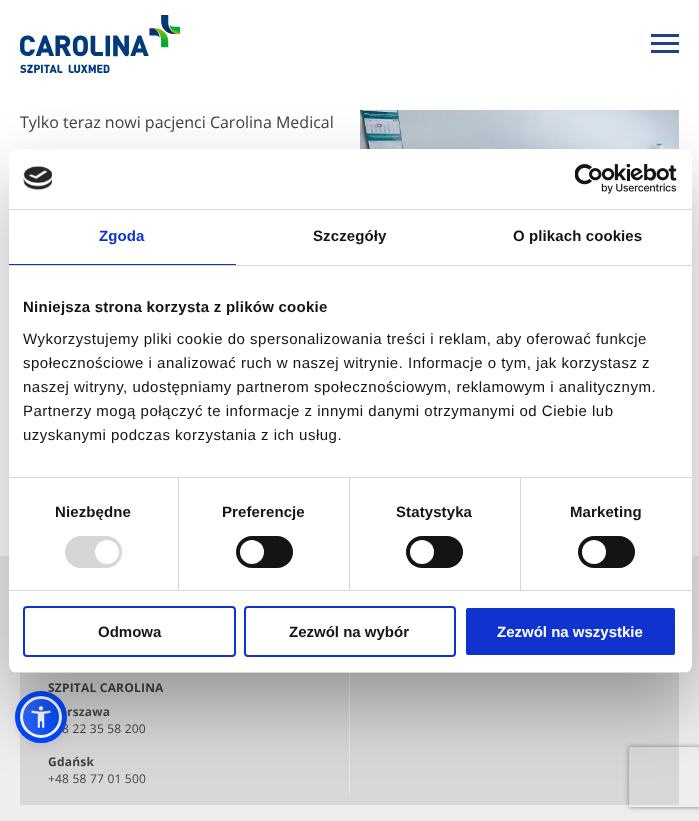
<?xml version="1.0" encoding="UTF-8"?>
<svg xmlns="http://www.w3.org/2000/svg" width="699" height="821">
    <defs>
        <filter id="blur1" x="-50%" y="-200%" width="200%" height="500%"><feGaussianBlur stdDeviation="2"/></filter>
        <filter id="blur2" x="-50%" y="-200%" width="200%" height="500%"><feGaussianBlur stdDeviation="7.5"/></filter>
        <clipPath id="clip1"><rect x="20" y="696" width="42" height="42" rx="21"/></clipPath>
        <linearGradient id="g1" gradientUnits="userSpaceOnUse" x1="21" y1="715" x2="61" y2="719"><stop offset="0" stop-color="#326CFF"/><stop offset="1" stop-color="#0048FF"/></linearGradient>
        <filter id="blur3" x="-50%" y="-200%" width="200%" height="500%"><feGaussianBlur stdDeviation="34"/></filter>
        <clipPath id="clip2"><rect x="9" y="149" width="683" height="524" rx="8"/></clipPath>
        <clipPath id="clip3"><path d="M 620 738 H 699 V 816 H 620 Z M 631 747 H 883 C 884 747 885 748 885 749 V 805 C 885 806 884 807 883 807 H 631 C 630 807 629 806 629 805 V 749 C 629 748 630 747 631 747 Z" clip-rule="evenodd"/></clipPath>
        <filter id="blur4" x="-50%" y="-200%" width="200%" height="500%"><feGaussianBlur stdDeviation="2.5"/></filter>
    </defs>
    <rect width="100%" height="100%" fill="#FFFFFF"/>
    <image x="20" y="15" width="160" height="58" href="img_01.png"/>
    <rect x="651" y="42" width="28" height="3" fill="#1F4288"/>
    <rect x="651" y="34" width="28" height="3" fill="#1F4288"/>
    <rect x="651" y="50" width="28" height="3" fill="#1F4288"/>
    <text x="20" y="128" font-family="Open Sans" font-size="16" fill="#414141">Tylko teraz nowi pacjenci Carolina Medical</text>
    <image x="360" y="110" width="319" height="39" href="img_02.png"/>
    <rect x="0" y="556" width="699" height="265" fill="#EEEEEE"/>
    <rect x="20" y="673" width="659" height="132" fill="#D7D7D7"/>
    <rect x="20" y="698" width="42" height="42" rx="21" fill="#5D6494" fill-opacity="0.2" filter="url(#blur1)"/>
    <rect x="20" y="701" width="42" height="42" rx="21" fill="#252C61" fill-opacity="0.15" filter="url(#blur2)"/>
    <g clip-path="url(#clip1)">
        <rect x="23" y="699" width="36" height="36" fill="url(#g1)"/>
    </g>
    <circle cx="41" cy="717" r="19.5" fill="none" stroke="#FFFFFF" stroke-width="3"/>
    <text x="48" y="692" font-family="Open Sans" font-size="12" font-weight="700" letter-spacing="0.2" fill="#414141">SZPITAL CAROLINA</text>
    <text x="62" y="733" font-family="Open Sans" font-size="12" letter-spacing="0.2" fill="#414141">8 22 35 58 200</text>
    <circle cx="41" cy="717" r="23.5" fill="none" stroke="#0048FF" stroke-width="5"/>
    <image x="31" y="706" width="20" height="22" href="img_05.png"/>
    <rect x="349" y="671" width="1" height="124" fill="#E9E9E9"/>
    <rect x="9" y="181" width="683" height="524" rx="8" fill="#000000" fill-opacity="0.3" filter="url(#blur3)"/>
    <rect x="9" y="149" width="683" height="524" rx="8" fill="#FFFFFF"/>
    <rect x="9" y="209" width="683" height="1" fill="#D6D6D6"/>
    <image x="23" y="166" width="30" height="24" href="img_03.png"/>
    <image x="575" y="164" width="102" height="30" href="img_04.png"/>
    <rect x="9" y="265" width="683" height="1" fill="#D6D6D6"/>
    <rect x="9" y="264" width="227" height="1" fill="#1032CF"/>
    <text x="99" y="241" font-family="Liberation Sans" font-size="15" font-weight="700" letter-spacing="0.1" fill="#1032CF">Zgoda</text>
    <text x="313" y="241" font-family="Liberation Sans" font-size="15" font-weight="700" letter-spacing="0.1" fill="#141414">Szczegóły</text>
    <text x="513" y="241" font-family="Liberation Sans" font-size="15" font-weight="700" letter-spacing="0.1" fill="#141414">O plikach cookies</text>
    <rect x="9" y="477" width="683" height="1" fill="#D6D6D6"/>
    <text x="23" y="312" font-family="Liberation Sans" font-size="15" font-weight="700" letter-spacing="0.25" fill="#141414">Niniejsza strona korzysta z plików cookie</text>
    <text font-family="Liberation Sans" font-size="15" letter-spacing="0.5" fill="#141414">
        <tspan x="23" y="344">Wykorzystujemy pliki cookie do spersonalizowania treści i reklam, aby oferować funkcje</tspan>
        <tspan x="23" y="368">społecznościowe i analizować ruch w naszej witrynie. Informacje o tym, jak korzystasz z</tspan>
        <tspan x="23" y="392">naszej witryny, udostępniamy partnerom społecznościowym, reklamowym i analitycznym.</tspan>
        <tspan x="23" y="416">Partnerzy mogą połączyć te informacje z innymi danymi otrzymanymi od Ciebie lub</tspan>
        <tspan x="23" y="440">uzyskanymi podczas korzystania z ich usług.</tspan>
    </text>
    <rect x="9" y="590" width="683" height="1" fill="#D6D6D6"/>
    <rect x="178" y="478" width="1" height="112" fill="#D6D6D6"/>
    <text x="55" y="517" font-family="Liberation Sans" font-size="15" font-weight="700" letter-spacing="0.1" fill="#141414">Niezbędne</text>
    <rect x="65" y="536" width="57" height="32" rx="16" fill="#D6D6D6"/>
    <circle cx="107" cy="552" r="12" fill="#FFFFFF"/>
    <rect x="349" y="478" width="1" height="112" fill="#D6D6D6"/>
    <text x="222" y="517" font-family="Liberation Sans" font-size="15" font-weight="700" letter-spacing="0.1" fill="#141414">Preferencje</text>
    <rect x="236" y="536" width="57" height="32" rx="16" fill="#141414"/>
    <circle cx="252" cy="552" r="12" fill="#FFFFFF"/>
    <rect x="520" y="478" width="1" height="112" fill="#D6D6D6"/>
    <text x="396" y="517" font-family="Liberation Sans" font-size="15" font-weight="700" letter-spacing="0.1" fill="#141414">Statystyka</text>
    <rect x="406" y="536" width="57" height="32" rx="16" fill="#141414"/>
    <circle cx="422" cy="552" r="12" fill="#FFFFFF"/>
    <text x="570" y="517" font-family="Liberation Sans" font-size="15" font-weight="700" letter-spacing="0.1" fill="#141414">Marketing</text>
    <rect x="578" y="536" width="57" height="32" rx="16" fill="#141414"/>
    <circle cx="594" cy="552" r="12" fill="#FFFFFF"/>
    <g clip-path="url(#clip2)">
        <rect x="9" y="672" width="683" height="1" fill="#D6D6D6"/>
    </g>
    <rect x="24" y="607" width="211" height="49" rx="3" fill="none" stroke="#1032CF" stroke-width="2"/>
    <text x="98" y="637" font-family="Liberation Sans" font-size="15" font-weight="700" fill="#141414">Odmowa</text>
    <rect x="245" y="607" width="210" height="49" rx="3" fill="none" stroke="#1032CF" stroke-width="2"/>
    <text x="289" y="637" font-family="Liberation Sans" font-size="15" font-weight="700" fill="#141414">Zezwól na wybór</text>
    <rect x="465" y="607" width="211" height="49" rx="3" fill="#1032CF" stroke="#FFFFFF" stroke-width="2"/>
    <text x="497" y="637" font-family="Liberation Sans" font-size="15" font-weight="700" fill="#FFFFFF">Zezwól na wszystkie</text>
    <text x="67" y="716" font-family="Open Sans" font-size="12" font-weight="700" letter-spacing="0.2" fill="#414141">rszawa</text>
    <text x="48" y="766" font-family="Open Sans" font-size="12" font-weight="700" letter-spacing="0.2" fill="#414141">Gdańsk</text>
    <text x="48" y="783" font-family="Open Sans" font-size="12" letter-spacing="0.2" fill="#414141">+48 58 77 01 500</text>
    <g clip-path="url(#clip3)">
        <rect x="629" y="747" width="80" height="60" rx="2" fill="#808080" filter="url(#blur4)"/>
    </g>
</svg>
